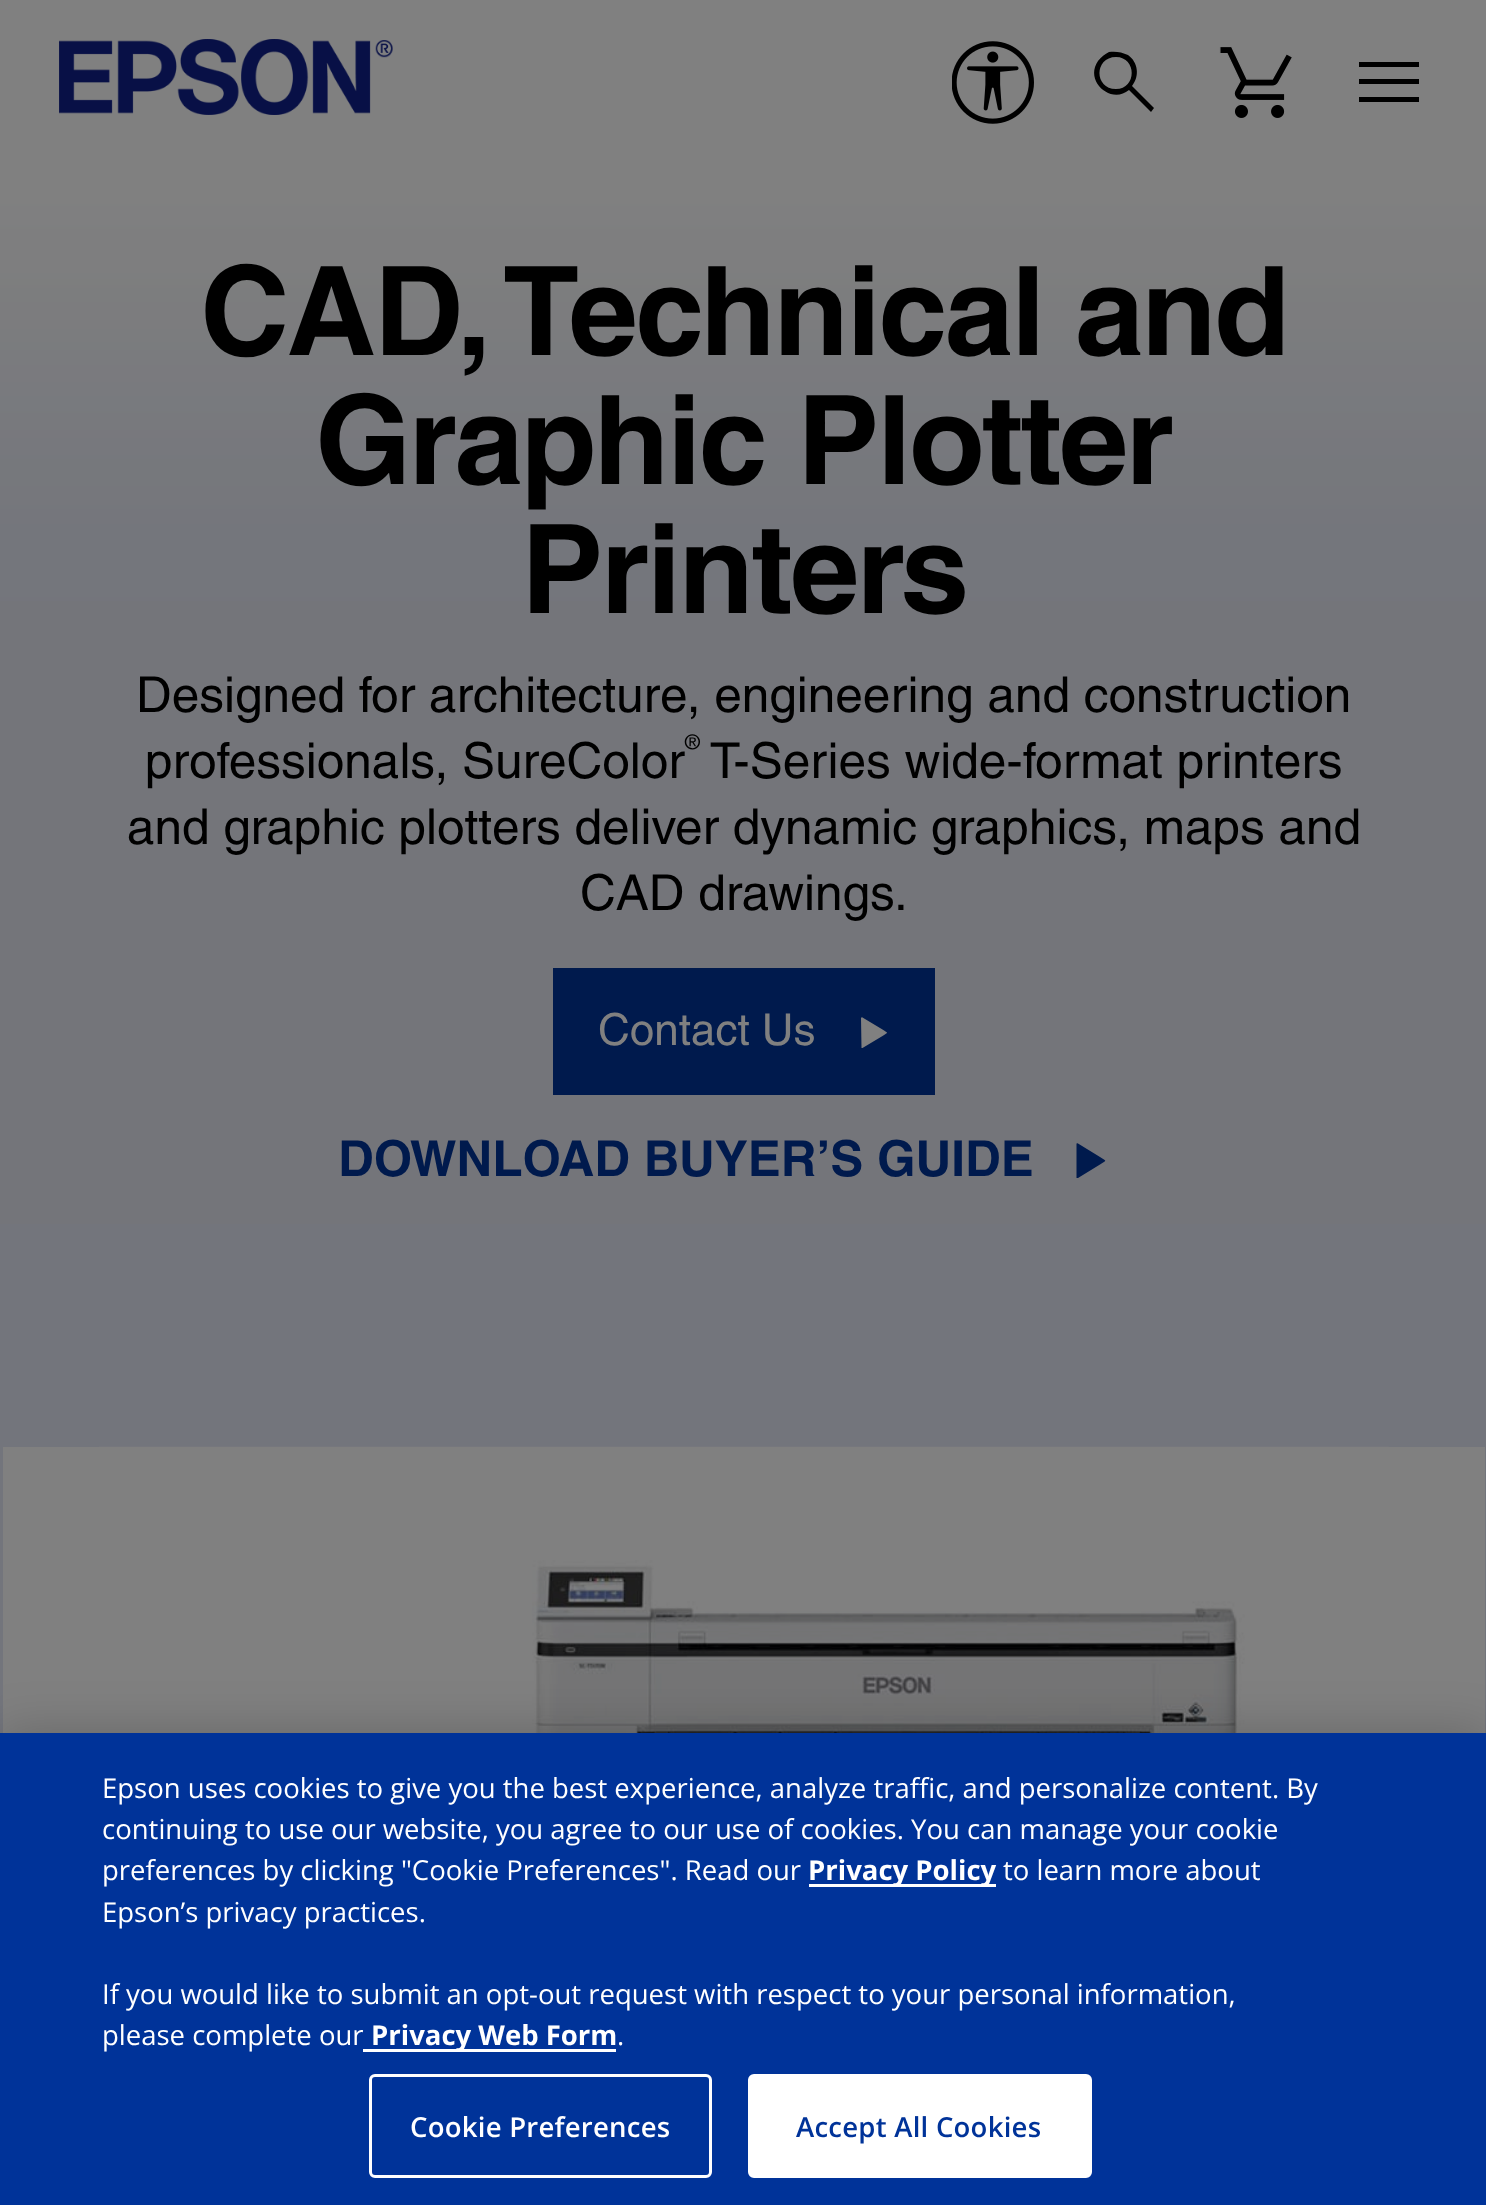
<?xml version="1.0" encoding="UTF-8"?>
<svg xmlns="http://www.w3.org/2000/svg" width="1486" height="2205">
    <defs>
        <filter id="blur1" x="-50%" y="-200%" width="200%" height="500%"><feGaussianBlur stdDeviation="25"/></filter>
    </defs>
    <rect width="100%" height="100%" fill="#808080"/>
    <image x="59" y="39" width="334" height="76" href="img_01.png"/>
    <image x="952" y="41" width="82" height="83" href="img_02.png"/>
    <path d="M 1151 112 L 1129 90 C 1111 105 1084 81 1098 61 C 1101 57 1105 54 1109 52 C 1115 51 1122 52 1128 55 C 1138 62 1140 76 1132 86 L 1154 108 Z M 1116 89 C 1137 89 1137 57 1116 57 C 1094 57 1094 89 1116 89 Z" fill="#000000"/>
    <image x="1219" y="47" width="74" height="72" href="img_03.png"/>
    <path d="M 1359 102 V 97 H 1419 V 102 Z M 1359 84 V 79 H 1419 V 84 Z M 1359 67 V 62 H 1419 V 67 Z" fill="#000000"/>
    <rect x="0" y="601" width="1486" height="623" fill="#74757A"/>
    <image x="0" y="165" width="1486" height="436" href="img_04.png"/>
    <text x="200" y="355" font-family="Helvetica" font-size="123.75" font-weight="700" letter-spacing="-2.5" fill="#000000">CAD, Technical and</text>
    <text x="315" y="484" font-family="Helvetica" font-size="123.75" font-weight="700" letter-spacing="-2.5" fill="#000000">Graphic Plotter</text>
    <text x="521" y="613" font-family="Helvetica" font-size="123.75" font-weight="700" letter-spacing="-2.5" fill="#000000">Printers</text>
    <text x="136" y="712" font-family="Helvetica" font-size="49.5" fill="#000000">Designed for architecture, engineering and construction</text>
    <text x="145" y="778" font-family="Helvetica" font-size="49.5" fill="#000000">professionals, SureColor</text>
    <text x="685" y="749" font-family="Helvetica" font-size="20" fill="#000000">®</text>
    <text x="710" y="778" font-family="Helvetica" font-size="49.5" fill="#000000">T-Series wide-format printers</text>
    <text x="127" y="844" font-family="Helvetica" font-size="49.5" fill="#000000">and graphic plotters deliver dynamic graphics, maps and</text>
    <text x="580" y="910" font-family="Helvetica" font-size="49.5" fill="#000000">CAD drawings.</text>
    <rect x="553" y="968" width="382" height="127" fill="#001A4D"/>
    <text x="598" y="1045" font-family="Helvetica" font-size="44" fill="#808080">Contact Us</text>
    <path d="M 862.5 1017.5 L 882.5 1029.5 C 888.5 1033.5 888.5 1032 882.5 1036 L 862.5 1048 H 861.5 L 861 1018 C 861.5 1017 862 1017 862.5 1017.5 Z" fill="#808080"/>
    <text x="338" y="1176" font-family="Helvetica" font-size="49.5" font-weight="700" fill="#001A4D">DOWNLOAD BUYER’S GUIDE</text>
    <path d="M 1078 1143.5 L 1100 1157 C 1107 1161.5 1107 1160 1100 1164.5 L 1078 1178 H 1076.5 V 1144 C 1076.5 1143 1077 1143 1078 1143.5 Z" fill="#001A4D"/>
    <rect x="0" y="1224" width="1486" height="220" fill="#73757C"/>
    <rect x="1.5" y="1445.5" width="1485" height="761" fill="none" stroke="#73757C" stroke-width="3"/>
    <image x="99" y="1446" width="1290" height="287" href="img_05.png"/>
    <rect x="0" y="1733" width="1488" height="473" fill="#000000" fill-opacity="0.2" filter="url(#blur1)"/>
    <rect x="0" y="1733" width="1486" height="472" fill="#003399"/>
    <text font-family="Open Sans" font-size="27.5" fill="#FFFFFF">
        <tspan x="102" y="1798">Epson uses cookies to give you the best experience, analyze traffic, and personalize content. By</tspan>
        <tspan x="102" y="1839">continuing to use our website, you agree to our use of cookies. You can manage your cookie</tspan>
        <tspan x="102" y="1880">preferences by clicking "Cookie Preferences". Read our</tspan>
    </text>
    <rect x="809" y="1884" width="187" height="3" fill="#FFFFFF"/>
    <text x="808" y="1880" font-family="Open Sans" font-size="27.5" font-weight="700" fill="#FFFFFF">Privacy Policy</text>
    <text x="1003" y="1880" font-family="Open Sans" font-size="27.5" fill="#FFFFFF">to learn more about</text>
    <text x="102" y="1922" font-family="Open Sans" font-size="27.5" fill="#FFFFFF">Epson’s privacy practices.</text>
    <text font-family="Open Sans" font-size="27.5" fill="#FFFFFF">
        <tspan x="102" y="2004">If you would like to submit an opt-out request with respect to your personal information,</tspan>
        <tspan x="102" y="2045">please complete our</tspan>
    </text>
    <rect x="363" y="2049" width="253" height="3" fill="#FFFFFF"/>
    <text x="371" y="2045" font-family="Open Sans" font-size="27.5" font-weight="700" fill="#FFFFFF">Privacy Web Form</text>
    <text x="617" y="2045" font-family="Open Sans" font-size="27.5" fill="#FFFFFF">.</text>
    <rect x="370.5" y="2075.5" width="340" height="101" rx="4.5" fill="none" stroke="#FFFFFF" stroke-width="3"/>
    <text x="410" y="2137" font-family="Open Sans" font-size="27.5" font-weight="600" letter-spacing="0.25" fill="#FFFFFF">Cookie Preferences</text>
    <rect x="749.5" y="2075.5" width="341" height="101" rx="4.5" fill="#FFFFFF" stroke="#FFFFFF" stroke-width="3"/>
    <text x="796" y="2137" font-family="Open Sans" font-size="27.5" font-weight="600" letter-spacing="0.25" fill="#003399">Accept All Cookies</text>
</svg>
